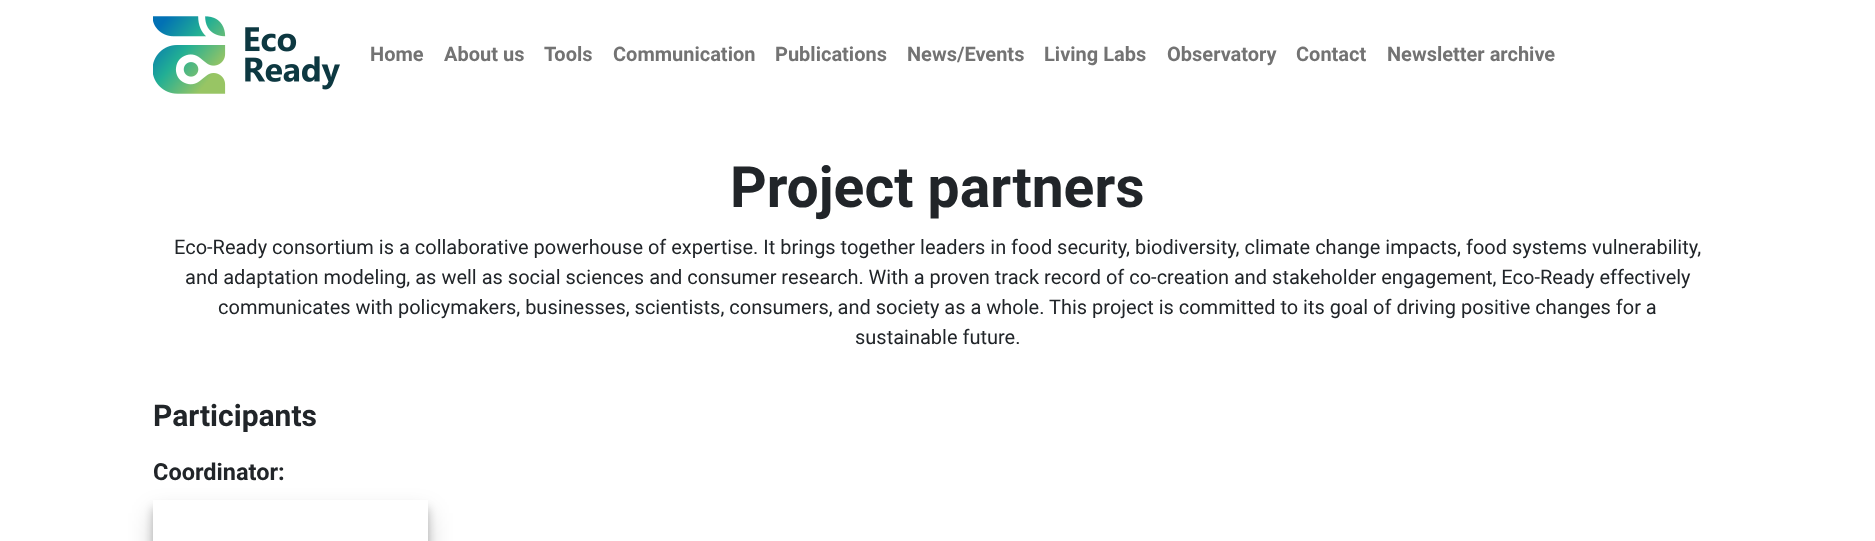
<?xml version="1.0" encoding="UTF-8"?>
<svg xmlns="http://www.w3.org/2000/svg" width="1875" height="541">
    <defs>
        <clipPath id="clip1"><path d="M 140 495 H 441 V 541 H 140 Z M 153 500 H 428 V 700 H 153 Z" clip-rule="evenodd"/></clipPath>
        <filter id="blur1" x="-50%" y="-200%" width="200%" height="500%"><feGaussianBlur stdDeviation="4"/></filter>
        <clipPath id="clip2"><path d="M 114 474 H 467 V 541 H 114 Z M 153 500 H 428 V 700 H 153 Z" clip-rule="evenodd"/></clipPath>
        <filter id="blur2" x="-50%" y="-200%" width="200%" height="500%"><feGaussianBlur stdDeviation="12.5"/></filter>
    </defs>
    <rect width="100%" height="100%" fill="#FFFFFF"/>
    <image x="153" y="16" width="187" height="78" href="img_01.png"/>
    <text x="370" y="61" font-family="Roboto" font-size="20" font-weight="700" fill="#737373">Home</text>
    <text x="444" y="61" font-family="Roboto" font-size="20" font-weight="700" fill="#737373">About us</text>
    <text x="544" y="61" font-family="Roboto" font-size="20" font-weight="700" fill="#737373">Tools</text>
    <text x="613" y="61" font-family="Roboto" font-size="20" font-weight="700" fill="#737373">Communication</text>
    <text x="775" y="61" font-family="Roboto" font-size="20" font-weight="700" fill="#737373">Publications</text>
    <text x="907" y="61" font-family="Roboto" font-size="20" font-weight="700" fill="#737373">News/Events</text>
    <text x="1044" y="61" font-family="Roboto" font-size="20" font-weight="700" fill="#737373">Living Labs</text>
    <text x="1167" y="61" font-family="Roboto" font-size="20" font-weight="700" fill="#737373">Observatory</text>
    <text x="1296" y="61" font-family="Roboto" font-size="20" font-weight="700" fill="#737373">Contact</text>
    <text x="1387" y="61" font-family="Roboto" font-size="20" font-weight="700" fill="#737373">Newsletter archive</text>
    <text x="730" y="207" font-family="Roboto" font-size="57" font-weight="700" fill="#212529">Project partners</text>
    <text x="174" y="254" font-family="Roboto" font-size="20" fill="#212529">Eco-Ready consortium is a collaborative powerhouse of expertise. It brings together leaders in food security, biodiversity, climate change impacts, food systems vulnerability,</text>
    <text x="185" y="284" font-family="Roboto" font-size="20" fill="#212529">and adaptation modeling, as well as social sciences and consumer research. With a proven track record of co-creation and stakeholder engagement, Eco-Ready effectively</text>
    <text x="218" y="314" font-family="Roboto" font-size="20" fill="#212529">communicates with policymakers, businesses, scientists, consumers, and society as a whole. This project is committed to its goal of driving positive changes for a</text>
    <text x="855" y="344" font-family="Roboto" font-size="20" fill="#212529">sustainable future.</text>
    <text x="153" y="426" font-family="Roboto" font-size="30" font-weight="700" fill="#212529">Participants</text>
    <text x="153" y="480" font-family="Roboto" font-size="23.5" font-weight="700" fill="#212529">Coordinator:</text>
    <g clip-path="url(#clip1)">
        <rect x="153" y="508" width="275" height="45" fill="#000000" fill-opacity="0.23" filter="url(#blur1)"/>
    </g>
    <g clip-path="url(#clip2)">
        <rect x="153" y="513" width="275" height="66" fill="#000000" fill-opacity="0.19" filter="url(#blur2)"/>
    </g>
</svg>
